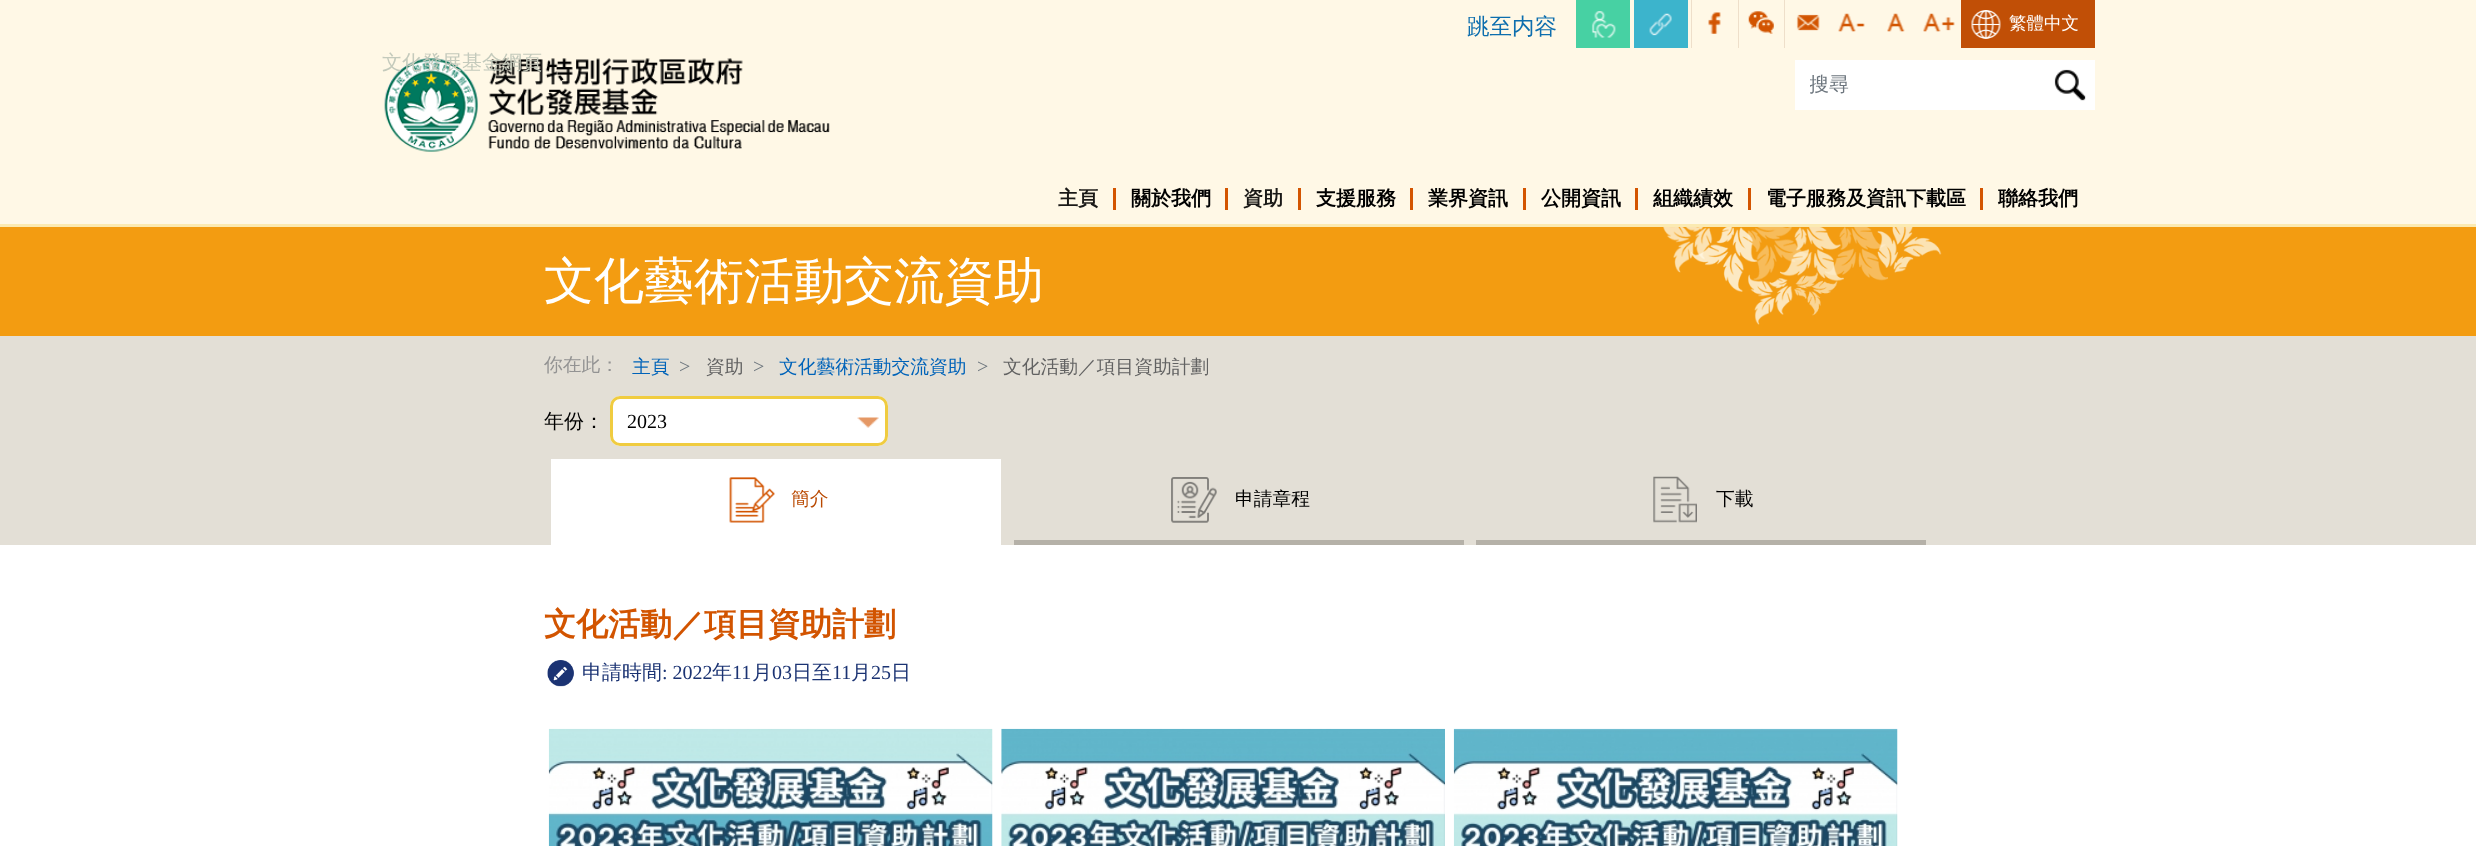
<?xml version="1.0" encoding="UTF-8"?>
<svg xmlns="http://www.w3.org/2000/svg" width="2476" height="846">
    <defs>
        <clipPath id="clip1"><rect x="1810" y="73" width="220" height="26"/></clipPath>
    </defs>
    <rect width="100%" height="100%" fill="#FFFFFF"/>
    <rect x="0" y="0" width="2476" height="224" fill="#FFF8E6"/>
    <rect x="0" y="224" width="2476" height="3" fill="#FBEAB2"/>
    <text x="1467" y="34" font-family="WenQuanYi Zen Hei" font-size="22.5" font-weight="500" fill="#0D6EAE">跳至内容</text>
    <rect x="1576" y="0" width="54" height="48" fill="#47D1A3"/>
    <image x="1591" y="11" width="25" height="27" href="img_01.png"/>
    <rect x="1634" y="0" width="54" height="48" fill="#3CB4CC"/>
    <image x="1649" y="13" width="23" height="23" href="img_02.png"/>
    <rect x="1691" y="0" width="1" height="48" fill="#EEDFCA"/>
    <image x="1708" y="12" width="13" height="22" href="img_03.png"/>
    <rect x="1738" y="0" width="1" height="48" fill="#EEDFCA"/>
    <image x="1748" y="11" width="26" height="23" href="img_04.png"/>
    <rect x="1784" y="0" width="1" height="48" fill="#EEDFCA"/>
    <image x="1796" y="14" width="24" height="17" href="img_05.png"/>
    <image x="1838" y="13" width="27" height="19" href="img_06.png"/>
    <image x="1887" y="13" width="18" height="19" href="img_07.png"/>
    <image x="1923" y="13" width="32" height="19" href="img_08.png"/>
    <rect x="1961" y="0" width="134" height="48" fill="#C14F06"/>
    <image x="1971" y="10" width="30" height="29" href="img_09.png"/>
    <text x="2009" y="29" font-family="WenQuanYi Zen Hei" font-size="17.5" font-weight="500" fill="#FFFFFF">繁體中文</text>
    <image x="384" y="58" width="446" height="94" href="img_10.png"/>
    <text x="382" y="69" font-family="WenQuanYi Zen Hei" font-size="20" font-weight="500" fill="#C4CABC">文化發展基金網頁</text>
    <rect x="1795" y="60" width="300" height="50" fill="#FFFFFF"/>
    <image x="2054" y="69" width="32" height="32" href="img_11.png"/>
    <g clip-path="url(#clip1)">
        <text x="1809" y="91" font-family="WenQuanYi Zen Hei" font-size="20" font-weight="500" fill="#6C757D">搜尋</text>
    </g>
    <text x="1058" y="205" font-family="WenQuanYi Zen Hei" font-size="20" font-weight="700" fill="#1A1917">主頁</text>
    <rect x="1113" y="188" width="3" height="22" fill="#D35501"/>
    <text x="1131" y="205" font-family="WenQuanYi Zen Hei" font-size="20" font-weight="700" fill="#000000">關於我們</text>
    <rect x="1225" y="188" width="3" height="22" fill="#D35501"/>
    <text x="1243" y="205" font-family="WenQuanYi Zen Hei" font-size="20" font-weight="700" fill="#1A1917">資助</text>
    <rect x="1298" y="188" width="3" height="22" fill="#D35501"/>
    <text x="1316" y="205" font-family="WenQuanYi Zen Hei" font-size="20" font-weight="700" fill="#000000">支援服務</text>
    <rect x="1410" y="188" width="3" height="22" fill="#D35501"/>
    <text x="1428" y="205" font-family="WenQuanYi Zen Hei" font-size="20" font-weight="700" fill="#000000">業界資訊</text>
    <rect x="1523" y="188" width="3" height="22" fill="#D35501"/>
    <text x="1541" y="205" font-family="WenQuanYi Zen Hei" font-size="20" font-weight="700" fill="#000000">公開資訊</text>
    <rect x="1635" y="188" width="3" height="22" fill="#D35501"/>
    <text x="1653" y="205" font-family="WenQuanYi Zen Hei" font-size="20" font-weight="700" fill="#000000">組織績效</text>
    <rect x="1748" y="188" width="3" height="22" fill="#D35501"/>
    <text x="1766" y="205" font-family="WenQuanYi Zen Hei" font-size="20" font-weight="700" fill="#000000">電子服務及資訊下載區</text>
    <rect x="1980" y="188" width="3" height="22" fill="#D35501"/>
    <text x="1998" y="205" font-family="WenQuanYi Zen Hei" font-size="20" font-weight="700" fill="#000000">聯絡我們</text>
    <rect x="0" y="227" width="2476" height="109" fill="#F39C11"/>
    <image x="1663" y="227" width="279" height="98" href="img_12.png"/>
    <text x="544" y="298" font-family="WenQuanYi Zen Hei" font-size="50" font-weight="500" fill="#FFFFFF">文化藝術活動交流資助</text>
    <rect x="0" y="336" width="2476" height="209" fill="#E3DFD6"/>
    <text x="544" y="371" font-family="WenQuanYi Zen Hei" font-size="18.75" font-weight="500" fill="#939393">你在此：</text>
    <text x="632" y="373" font-family="WenQuanYi Zen Hei" font-size="18.75" font-weight="500" fill="#0063B9">主頁</text>
    <text x="679" y="373" font-family="Liberation Serif" font-size="20" fill="#6C757D">&gt;</text>
    <text x="706" y="373" font-family="WenQuanYi Zen Hei" font-size="18.75" font-weight="500" fill="#626262">資助</text>
    <text x="753" y="373" font-family="Liberation Serif" font-size="20" fill="#6C757D">&gt;</text>
    <text x="779" y="373" font-family="WenQuanYi Zen Hei" font-size="18.75" font-weight="500" fill="#0063B9">文化藝術活動交流資助</text>
    <text x="977" y="373" font-family="Liberation Serif" font-size="20" fill="#6C757D">&gt;</text>
    <text x="1003" y="373" font-family="WenQuanYi Zen Hei" font-size="18.75" font-weight="500" fill="#626262">文化活動／項目資助計劃</text>
    <text x="544" y="428" font-family="WenQuanYi Zen Hei" font-size="20" font-weight="500" fill="#000000">年份：</text>
    <rect x="610" y="396" width="278" height="50" rx="10" fill="#FFFFFF"/>
    <image x="857" y="417" width="22" height="11" href="img_13.png"/>
    <rect x="611.5" y="397.5" width="275" height="47" rx="8.5" fill="none" stroke="#F0CC40" stroke-width="3"/>
    <text x="627" y="428" font-family="Liberation Serif" font-size="20" fill="#000000">2023</text>
    <rect x="551" y="459" width="450" height="86" fill="#FFFFFF"/>
    <image x="729" y="477" width="46" height="46" href="img_14.png"/>
    <text x="791" y="505" font-family="WenQuanYi Zen Hei" font-size="18.75" font-weight="500" fill="#B94900">簡介</text>
    <rect x="1014" y="540" width="450" height="5" fill="#B5B1A8"/>
    <image x="1171" y="477" width="46" height="46" href="img_15.png"/>
    <text x="1235" y="505" font-family="WenQuanYi Zen Hei" font-size="18.75" font-weight="500" fill="#000000">申請章程</text>
    <rect x="1476" y="540" width="450" height="5" fill="#B5B1A8"/>
    <image x="1653" y="476" width="44" height="47" href="img_16.png"/>
    <text x="1716" y="505" font-family="WenQuanYi Zen Hei" font-size="18.75" font-weight="500" fill="#000000">下載</text>
    <text x="544" y="635" font-family="WenQuanYi Zen Hei" font-size="32" font-weight="700" fill="#D25400">文化活動／項目資助計劃</text>
    <image x="547" y="660" width="27" height="27" href="img_17.png"/>
    <text x="582" y="679" font-family="WenQuanYi Zen Hei" font-size="20" font-weight="500" fill="#1B3373">申請時間</text>
    <text x="662" y="679" font-family="Liberation Serif" font-size="20" fill="#1B3373">: 2022</text>
    <text x="712" y="679" font-family="WenQuanYi Zen Hei" font-size="20" font-weight="500" fill="#1B3373">年</text>
    <text x="732" y="679" font-family="Liberation Serif" font-size="20" fill="#1B3373">11</text>
    <text x="752" y="679" font-family="WenQuanYi Zen Hei" font-size="20" font-weight="500" fill="#1B3373">月</text>
    <text x="772" y="679" font-family="Liberation Serif" font-size="20" fill="#1B3373">03</text>
    <text x="792" y="679" font-family="WenQuanYi Zen Hei" font-size="20" font-weight="500" fill="#1B3373">日至</text>
    <text x="832" y="679" font-family="Liberation Serif" font-size="20" fill="#1B3373">11</text>
    <text x="851" y="679" font-family="WenQuanYi Zen Hei" font-size="20" font-weight="500" fill="#1B3373">月</text>
    <text x="871" y="679" font-family="Liberation Serif" font-size="20" fill="#1B3373">25</text>
    <text x="891" y="679" font-family="WenQuanYi Zen Hei" font-size="20" font-weight="500" fill="#1B3373">日</text>
    <image x="548" y="728" width="445" height="118" href="img_18.png"/>
    <image x="1001" y="728" width="444" height="118" href="img_19.png"/>
    <image x="1453" y="728" width="445" height="118" href="img_20.png"/>
</svg>
